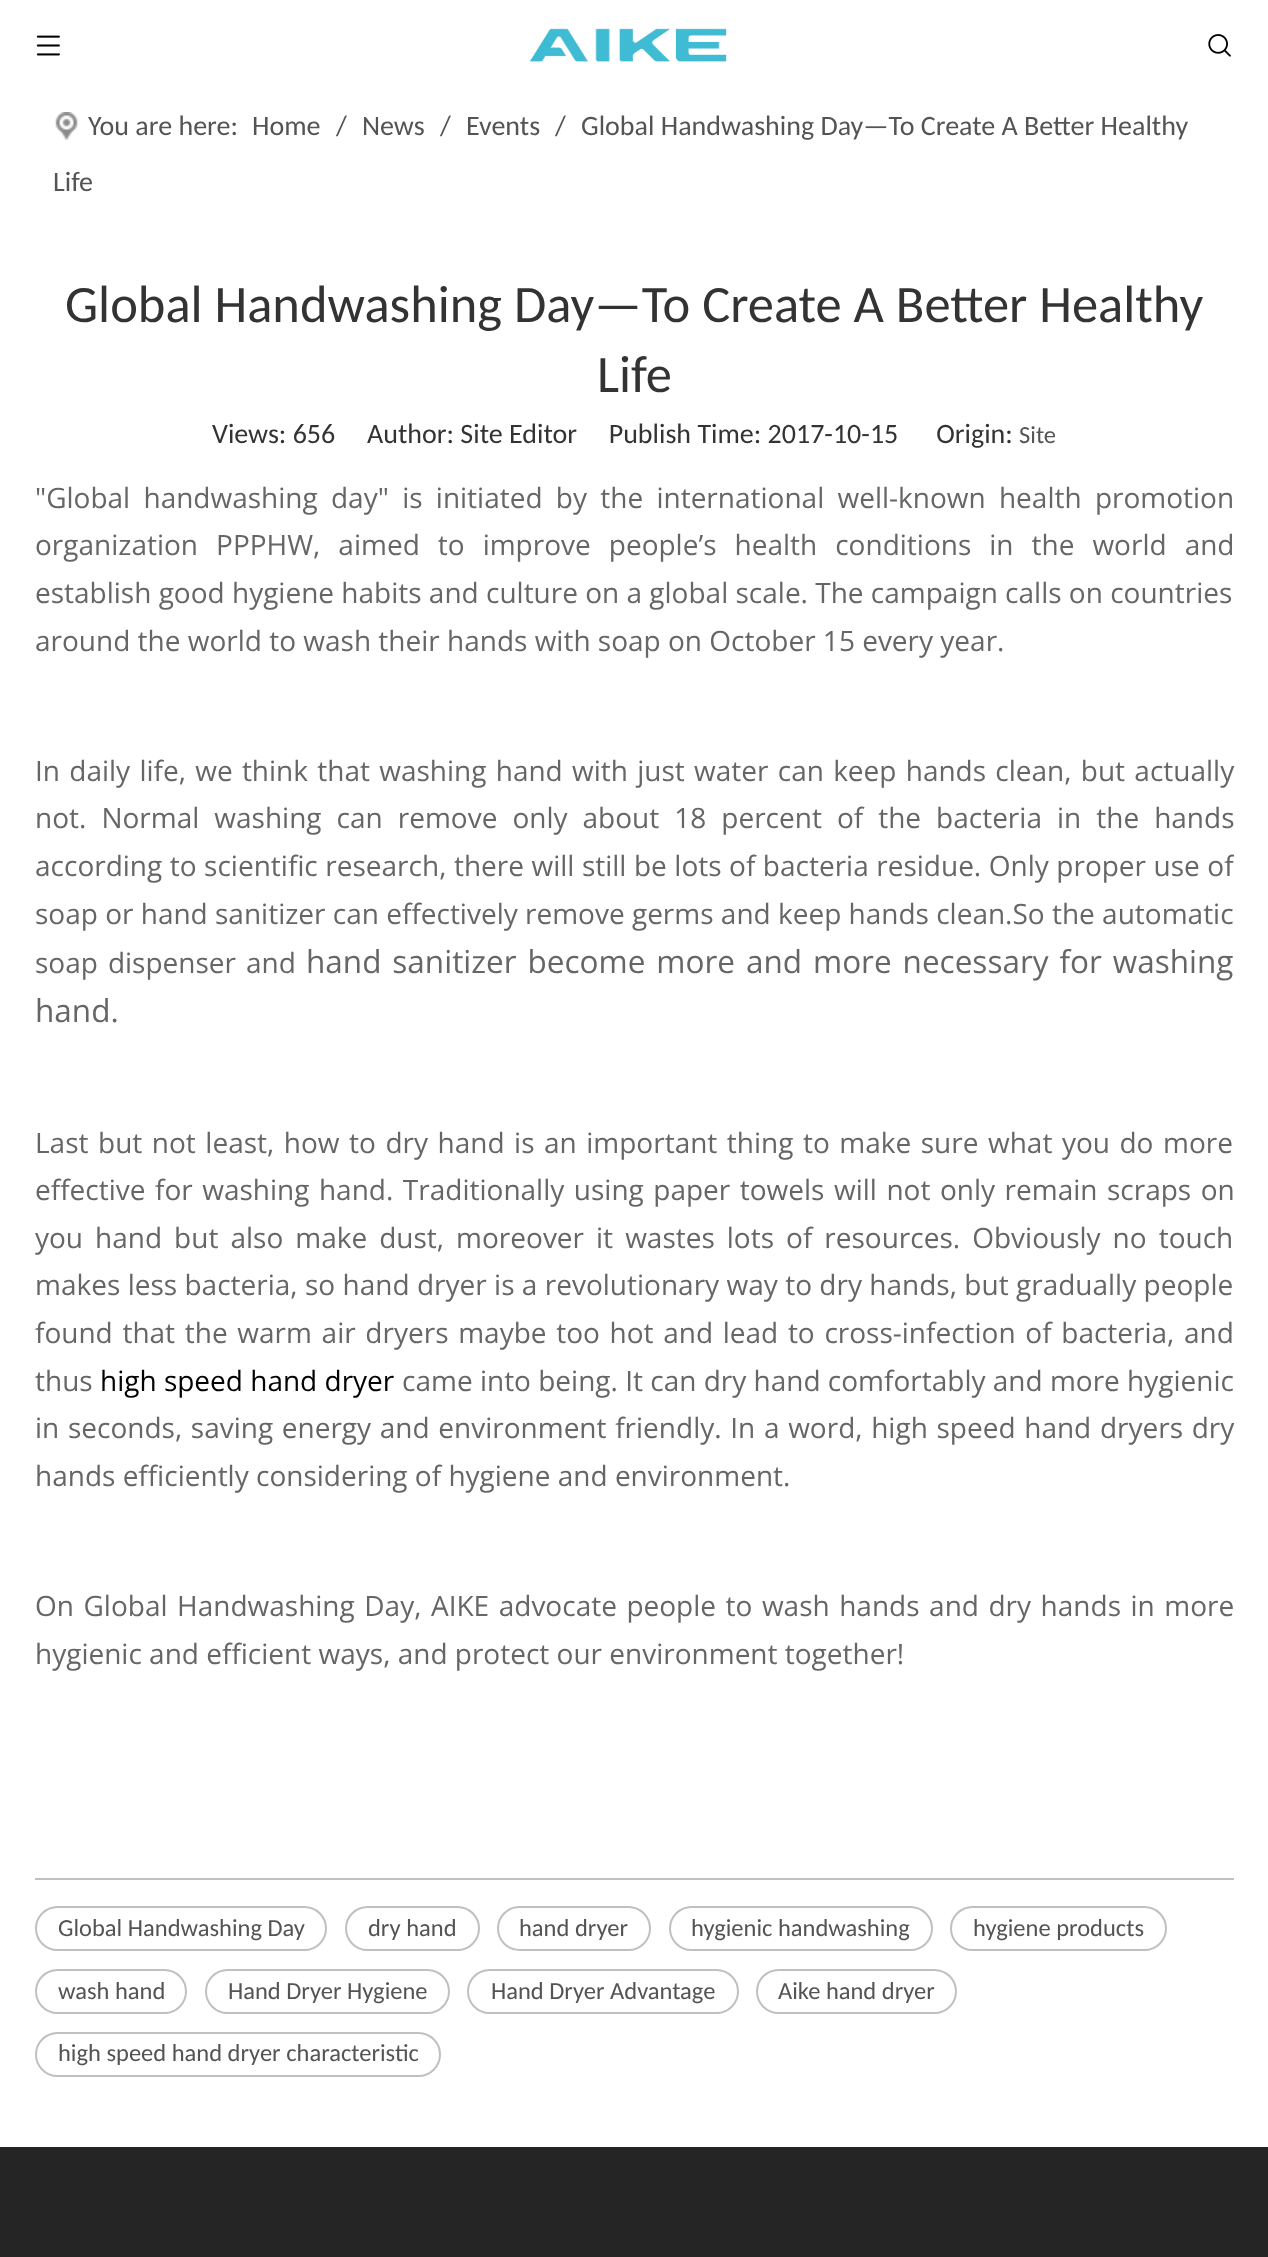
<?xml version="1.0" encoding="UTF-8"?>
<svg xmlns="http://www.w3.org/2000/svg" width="1268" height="2257">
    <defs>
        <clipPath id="clip1"><rect x="35" y="270" width="1199" height="1825"/></clipPath>
    </defs>
    <rect width="100%" height="100%" fill="#FFFFFF"/>
    <image x="36" y="35" width="24" height="21" href="img_01.png"/>
    <image x="530" y="28" width="197" height="34" href="img_02.png"/>
    <image x="1208" y="34" width="23" height="23" href="img_03.png"/>
    <image x="55" y="112" width="23" height="28" href="img_04.png"/>
    <text x="88" y="135" font-family="Carlito" font-size="28" fill="#545454">You are here:</text>
    <text x="252" y="135" font-family="Carlito" font-size="28" fill="#545454">Home</text>
    <text x="336" y="135" font-family="Carlito" font-size="28" fill="#545454">/</text>
    <text x="362" y="135" font-family="Carlito" font-size="28" fill="#545454">News</text>
    <text x="440" y="135" font-family="Carlito" font-size="28" fill="#545454">/</text>
    <text x="466" y="135" font-family="Carlito" font-size="28" fill="#545454">Events</text>
    <text x="555" y="135" font-family="Carlito" font-size="28" fill="#545454">/</text>
    <text x="581" y="135" font-family="Carlito" font-size="28" fill="#545454">Global Handwashing Day—To Create A Better Healthy</text>
    <text x="53" y="191" font-family="Carlito" font-size="28" fill="#545454">Life</text>
    <text x="65" y="322" font-family="Carlito" font-size="52.5" fill="#333333">Global Handwashing Day—To Create A Better Healthy</text>
    <text x="597" y="392" font-family="Carlito" font-size="52.5" fill="#333333">Life</text>
    <text x="212" y="443" font-family="Carlito" font-size="28" fill="#333333">Views: 656</text>
    <text x="367" y="443" font-family="Carlito" font-size="28" fill="#333333" xml:space="preserve">Author: Site Editor     Publish Time: 2017-10-15      Origin:</text>
    <text x="1019" y="443" font-family="Carlito" font-size="24.5" fill="#545454">Site</text>
    <text font-family="Open Sans" font-size="28" fill="#666666">
        <tspan x="35" y="508" word-spacing="6">"Global handwashing day" is initiated by the international well-known health promotion</tspan>
        <tspan x="35" y="555" word-spacing="10.75">organization PPPHW, aimed to improve people’s health conditions in the world and</tspan>
        <tspan x="35" y="603">establish good hygiene habits and culture on a global scale. The campaign calls on countries</tspan>
        <tspan x="35" y="651">around the world to wash their hands with soap on October 15 every year.</tspan>
    </text>
    <text font-family="Open Sans" font-size="28" fill="#666666">
        <tspan x="35" y="781" word-spacing="2">In daily life, we think that washing hand with just water can keep hands clean, but actually</tspan>
        <tspan x="35" y="828" word-spacing="7.75">not. Normal washing can remove only about 18 percent of the bacteria in the hands</tspan>
    </text>
    <g clip-path="url(#clip1)">
        <text x="35" y="876" word-spacing="0.25" font-family="Open Sans" font-size="28" fill="#666666">according to scientific research, there will still be lots of bacteria residue. Only proper use of</text>
    </g>
    <text font-family="Open Sans" font-size="28" fill="#666666">
        <tspan x="35" y="924">soap or hand sanitizer can effectively remove germs and keep hands clean.So the automatic</tspan>
        <tspan x="35" y="973" word-spacing="2.75">soap dispenser and</tspan>
    </text>
    <text x="306" y="973" word-spacing="2.75" font-family="Open Sans" font-size="31.5" fill="#666666">hand sanitizer become more and more necessary for washing</text>
    <text x="35" y="1022" font-family="Open Sans" font-size="31.5" fill="#666666">hand.</text>
    <text font-family="Open Sans" font-size="28" fill="#666666">
        <tspan x="35" y="1153" word-spacing="2.25">Last but not least, how to dry hand is an important thing to make sure what you do more</tspan>
        <tspan x="35" y="1200" word-spacing="2.25">effective for washing hand. Traditionally using paper towels will not only remain scraps on</tspan>
        <tspan x="35" y="1248" word-spacing="4.75">you hand but also make dust, moreover it wastes lots of resources. Obviously no touch</tspan>
        <tspan x="35" y="1295" word-spacing="0.1">makes less bacteria, so hand dryer is a revolutionary way to dry hands, but gradually people</tspan>
        <tspan x="35" y="1343" word-spacing="2.4">found that the warm air dryers maybe too hot and lead to cross-infection of bacteria, and</tspan>
        <tspan x="35" y="1391">thus</tspan>
    </text>
    <text x="100" y="1391" font-family="Open Sans" font-size="28" fill="#000000">high speed hand dryer</text>
    <text x="402" y="1391" font-family="Open Sans" font-size="28" fill="#666666">came into being. It can dry hand comfortably and more hygienic</text>
    <text font-family="Open Sans" font-size="28" fill="#666666">
        <tspan x="35" y="1438" word-spacing="1.4">in seconds, saving energy and environment friendly. In a word, high speed hand dryers dry</tspan>
        <tspan x="35" y="1486">hands efficiently considering of hygiene and environment.</tspan>
    </text>
    <text font-family="Open Sans" font-size="28" fill="#666666">
        <tspan x="35" y="1616" word-spacing="2.25">On Global Handwashing Day, AIKE advocate people to wash hands and dry hands in more</tspan>
        <tspan x="35" y="1664">hygienic and efficient ways, and protect our environment together!</tspan>
    </text>
    <rect x="35" y="1878" width="1199" height="2" fill="#C0C0C0"/>
    <rect x="36" y="1907" width="290" height="43" rx="21.5" fill="none" stroke="#C0C0C0" stroke-width="2"/>
    <text x="58" y="1936" font-family="Carlito" font-size="24.5" fill="#545454">Global Handwashing Day</text>
    <rect x="346" y="1907" width="133" height="43" rx="21.5" fill="none" stroke="#C0C0C0" stroke-width="2"/>
    <text x="368" y="1936" font-family="Carlito" font-size="24.5" fill="#545454">dry hand</text>
    <rect x="498" y="1907" width="152" height="43" rx="21.5" fill="none" stroke="#C0C0C0" stroke-width="2"/>
    <text x="519" y="1936" font-family="Carlito" font-size="24.5" fill="#545454">hand dryer</text>
    <rect x="670" y="1907" width="262" height="43" rx="21.5" fill="none" stroke="#C0C0C0" stroke-width="2"/>
    <text x="691" y="1936" font-family="Carlito" font-size="24.5" fill="#545454">hygienic handwashing</text>
    <rect x="951" y="1907" width="215" height="43" rx="21.5" fill="none" stroke="#C0C0C0" stroke-width="2"/>
    <text x="973" y="1936" font-family="Carlito" font-size="24.5" fill="#545454">hygiene products</text>
    <rect x="36" y="1970" width="150" height="43" rx="21.5" fill="none" stroke="#C0C0C0" stroke-width="2"/>
    <text x="58" y="1999" font-family="Carlito" font-size="24.5" fill="#545454">wash hand</text>
    <rect x="206" y="1970" width="243" height="43" rx="21.5" fill="none" stroke="#C0C0C0" stroke-width="2"/>
    <text x="228" y="1999" font-family="Carlito" font-size="24.5" fill="#545454">Hand Dryer Hygiene</text>
    <rect x="468" y="1970" width="270" height="43" rx="21.5" fill="none" stroke="#C0C0C0" stroke-width="2"/>
    <text x="491" y="1999" font-family="Carlito" font-size="24.5" fill="#545454">Hand Dryer Advantage</text>
    <rect x="757" y="1970" width="199" height="43" rx="21.5" fill="none" stroke="#C0C0C0" stroke-width="2"/>
    <text x="778" y="1999" font-family="Carlito" font-size="24.5" fill="#545454">Aike hand dryer</text>
    <rect x="36" y="2033" width="404" height="43" rx="21.5" fill="none" stroke="#C0C0C0" stroke-width="2"/>
    <text x="58" y="2061" font-family="Carlito" font-size="24.5" fill="#545454">high speed hand dryer characteristic</text>
    <rect x="0" y="2147" width="1268" height="110" fill="#252525"/>
</svg>
